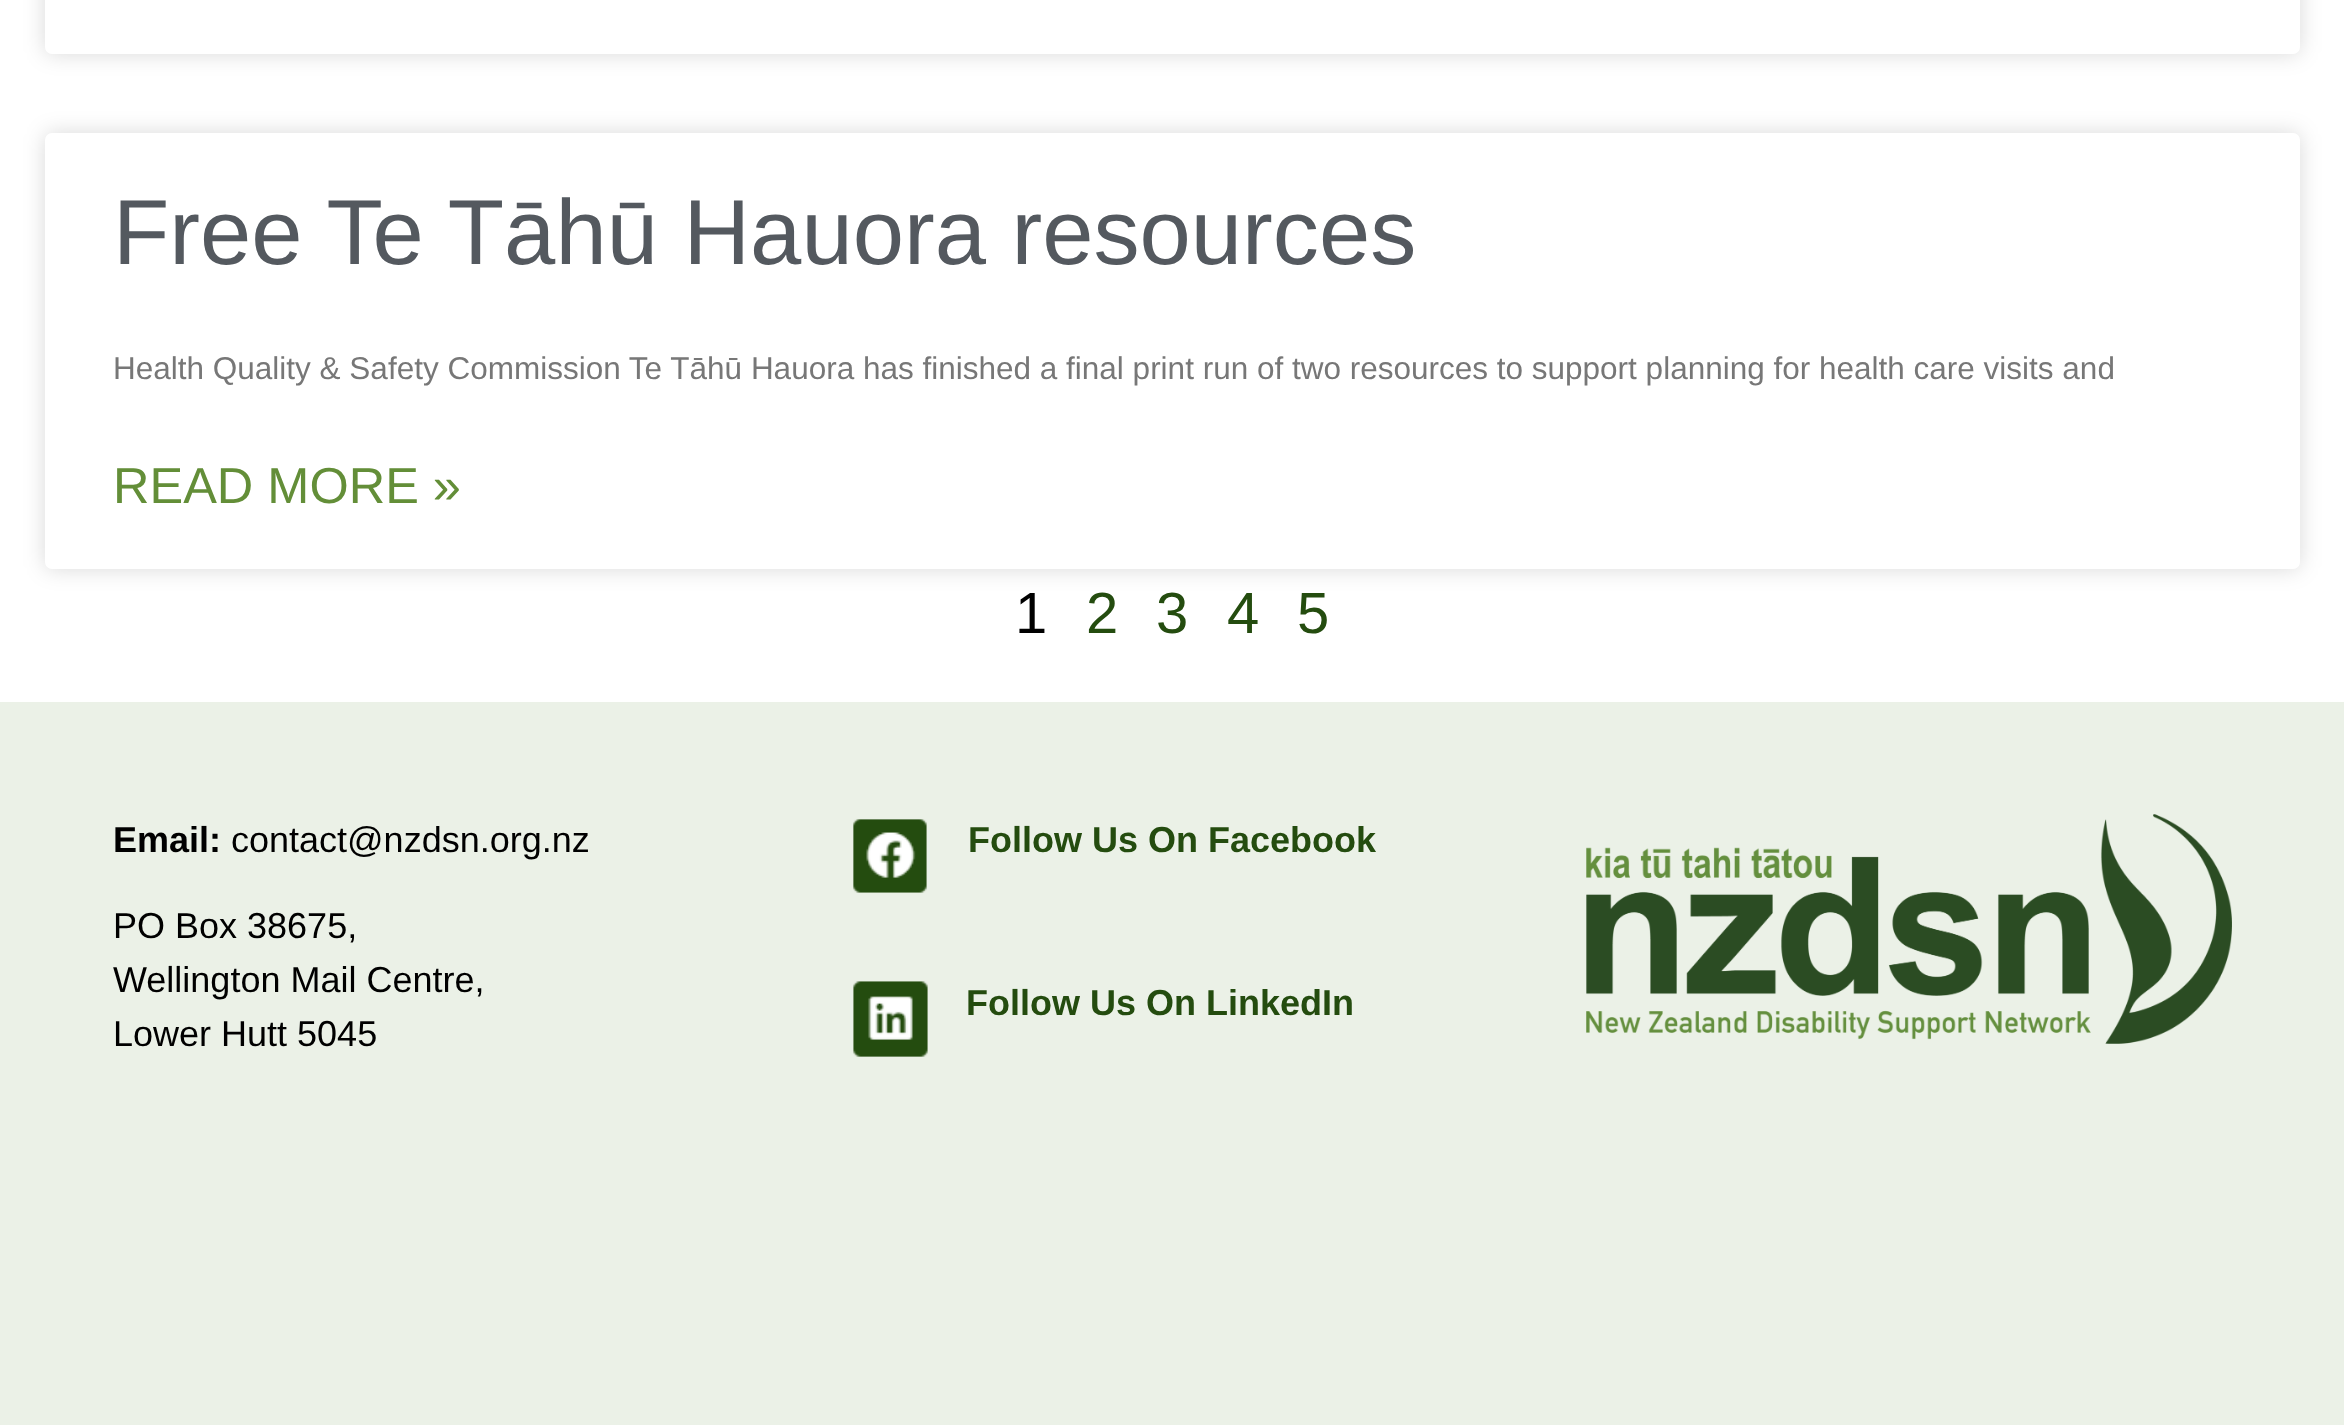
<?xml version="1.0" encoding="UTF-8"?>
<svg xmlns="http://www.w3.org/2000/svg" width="2344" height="1425">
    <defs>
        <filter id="blur1" x="-50%" y="-200%" width="200%" height="500%"><feGaussianBlur stdDeviation="11"/></filter>
    </defs>
    <rect width="100%" height="100%" fill="#FFFFFF"/>
    <rect x="45" y="-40" width="2255" height="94" rx="7" fill="#000000" fill-opacity="0.15" filter="url(#blur1)"/>
    <rect x="45" y="-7" width="2255" height="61" rx="7" fill="#FFFFFF"/>
    <rect x="45" y="133" width="2255" height="436" rx="7" fill="#000000" fill-opacity="0.15" filter="url(#blur1)"/>
    <rect x="45" y="133" width="2255" height="436" rx="7" fill="#FFFFFF"/>
    <text x="113" y="264" font-family="Liberation Sans" font-size="92.2" fill="#54595F">Free Te Tāhū Hauora resources</text>
    <text x="113" y="379" font-family="Liberation Sans" font-size="31.5" fill="#777777">Health Quality &amp; Safety Commission Te Tāhū Hauora has finished a final print run of two resources to support planning for health care visits and</text>
    <text x="113" y="503" font-family="Liberation Sans" font-size="50.5" fill="#638E38">READ MORE »</text>
    <text x="1015" y="633" font-family="Liberation Sans" font-size="58" fill="#000000">1</text>
    <text x="1086" y="633" font-family="Liberation Sans" font-size="58" fill="#244C0F">2</text>
    <text x="1156" y="633" font-family="Liberation Sans" font-size="58" fill="#244C0F">3</text>
    <text x="1227" y="633" font-family="Liberation Sans" font-size="58" fill="#244C0F">4</text>
    <text x="1297" y="633" font-family="Liberation Sans" font-size="58" fill="#244C0F">5</text>
    <rect x="0" y="702" width="2344" height="723" fill="#EBF1E7"/>
    <text x="113" y="852" font-family="Liberation Sans" font-size="36" font-weight="700" fill="#000000">Email:</text>
    <text x="231" y="852" font-family="Liberation Sans" font-size="36" fill="#000000">contact@nzdsn.org.nz</text>
    <text font-family="Liberation Sans" font-size="36" fill="#000000">
        <tspan x="113" y="938">PO Box 38675,</tspan>
        <tspan x="113" y="992">Wellington Mail Centre,</tspan>
        <tspan x="113" y="1046">Lower Hutt 5045</tspan>
    </text>
    <image x="853" y="819" width="74" height="74" href="img_01.png"/>
    <text x="968" y="852" font-family="Liberation Sans" font-size="36" font-weight="700" fill="#244C0F">Follow Us On Facebook</text>
    <image x="853" y="981" width="75" height="76" href="img_02.png"/>
    <text x="966" y="1015" font-family="Liberation Sans" font-size="36" font-weight="700" fill="#244C0F">Follow Us On LinkedIn</text>
    <image x="1586" y="814" width="646" height="230" href="img_03.png"/>
</svg>
